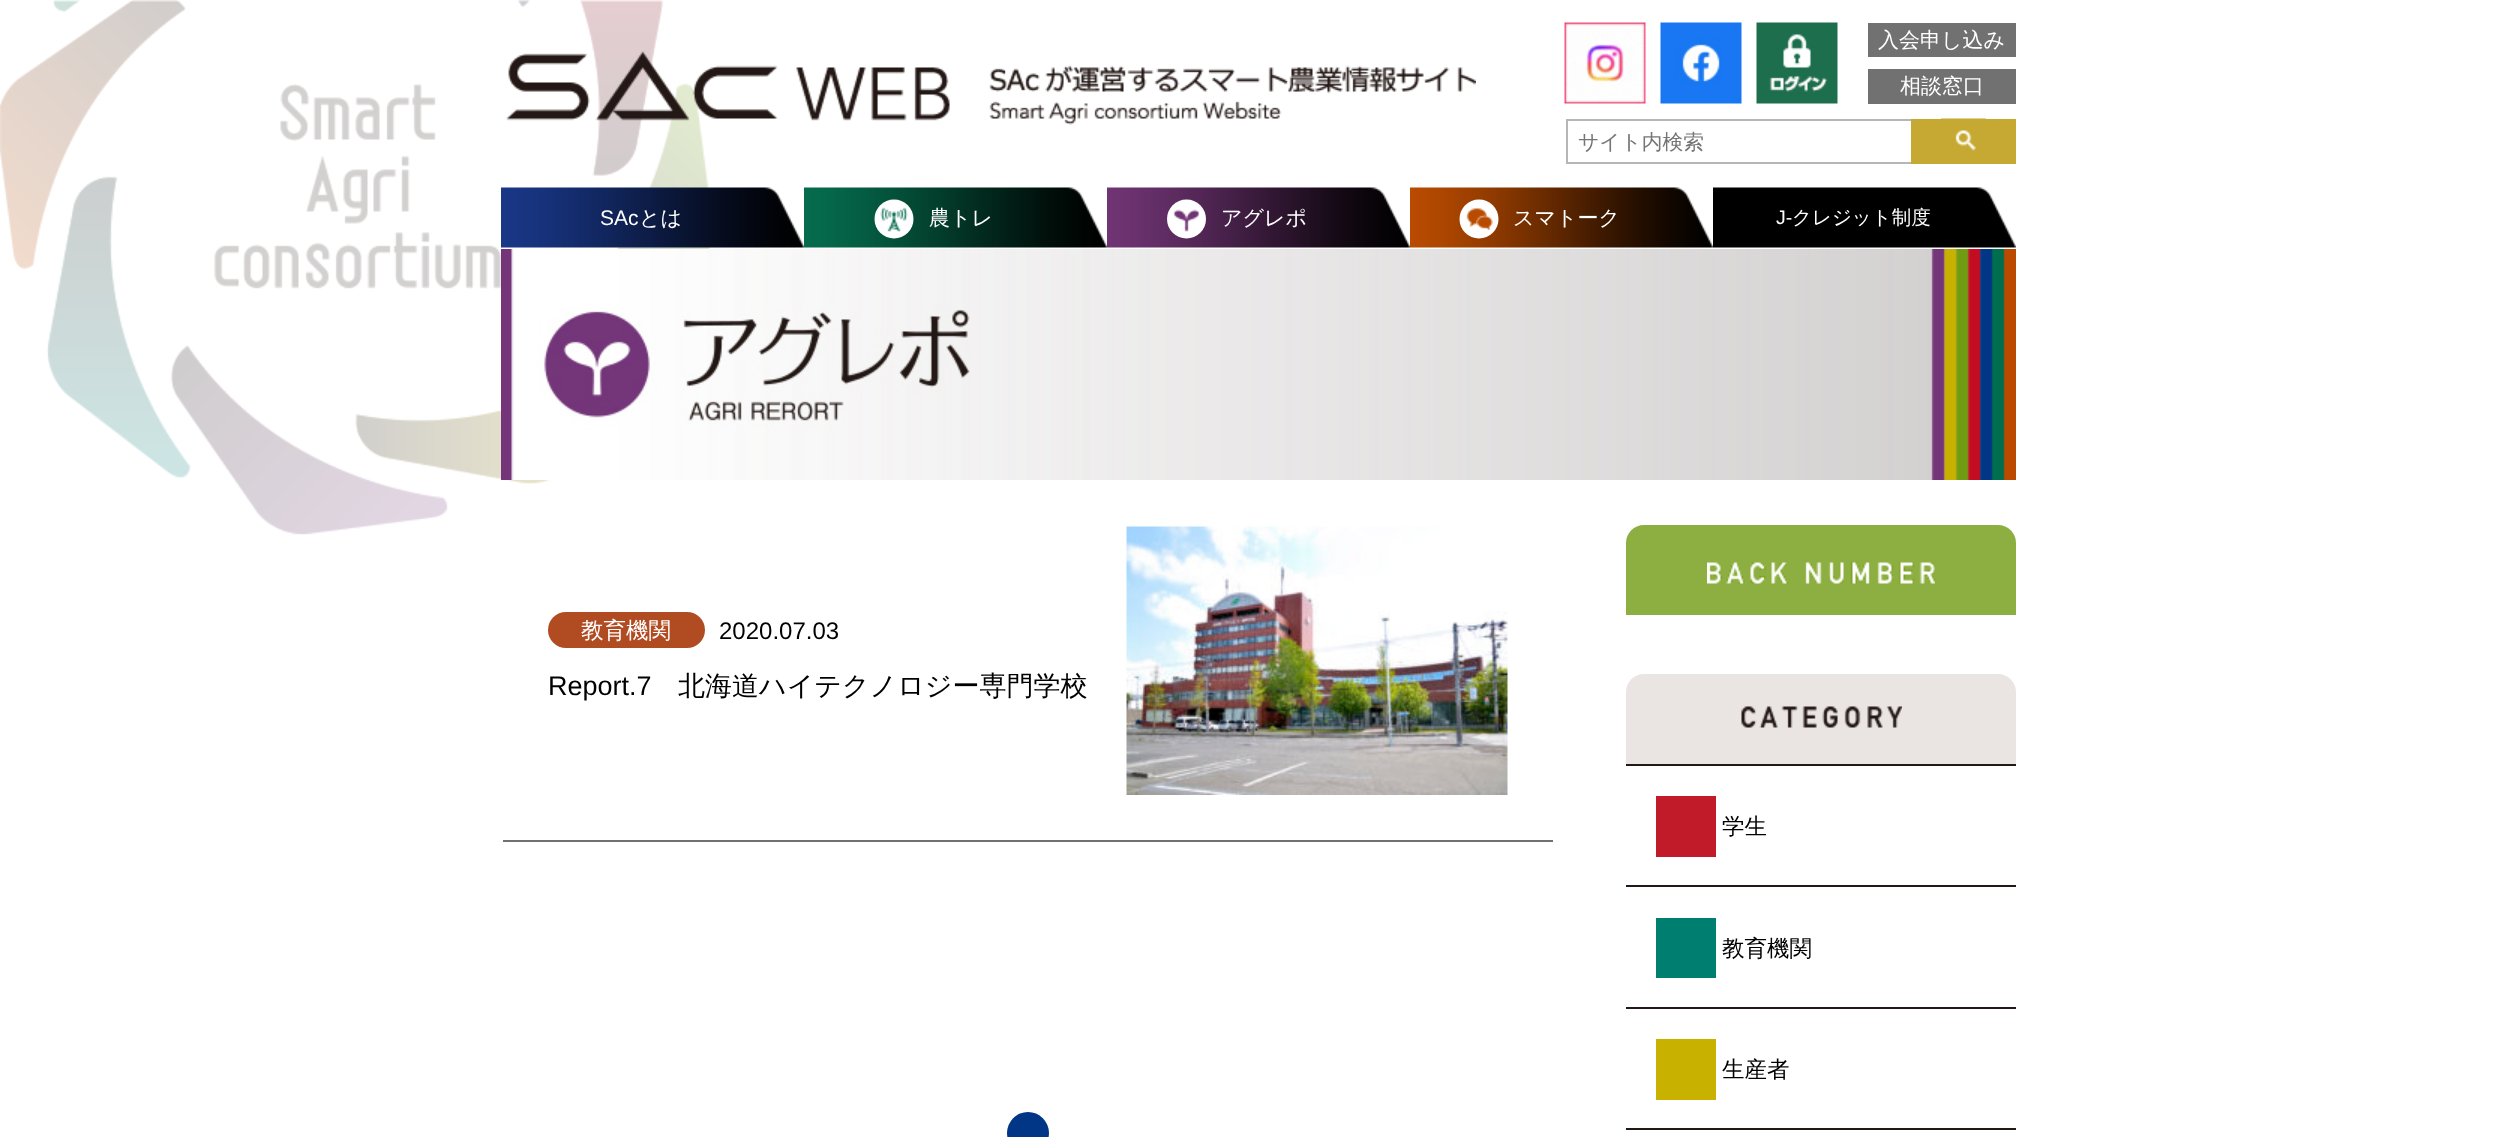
<?xml version="1.0" encoding="UTF-8"?>
<svg xmlns="http://www.w3.org/2000/svg" width="2516" height="1137">
    <rect width="100%" height="100%" fill="#FFFFFF"/>
    <image x="0" y="0" width="711" height="535" href="img_01.png"/>
    <image x="506" y="51" width="970" height="74" href="img_02.png"/>
    <image x="1564" y="22" width="82" height="82" href="img_03.png"/>
    <image x="1660" y="22" width="82" height="82" href="img_04.png"/>
    <image x="1756" y="22" width="82" height="82" href="img_05.png"/>
    <rect x="1868" y="23" width="148" height="34" fill="#727171"/>
    <text x="1878" y="47" font-family="WenQuanYi Zen Hei" font-size="21" font-weight="500" fill="#FFFFFF">入会申し込み</text>
    <rect x="1868" y="69" width="148" height="35" fill="#727171"/>
    <text x="1900" y="93" font-family="WenQuanYi Zen Hei" font-size="21" font-weight="500" fill="#FFFFFF">相談窓口</text>
    <rect x="1566" y="119" width="345" height="2" fill="#B6B6B6"/>
    <rect x="1566" y="162" width="345" height="2" fill="#B6B6B6"/>
    <rect x="1566" y="119" width="2" height="45" fill="#B6B6B6"/>
    <text x="1578" y="149" font-family="WenQuanYi Zen Hei" font-size="20.75" font-weight="500" fill="#757575">サイト内検索</text>
    <rect x="1911" y="119" width="105" height="45" fill="#C6A933"/>
    <image x="1941" y="118" width="45" height="36" href="img_06.png"/>
    <image x="501" y="187" width="303" height="61" href="img_07.png"/>
    <text x="600" y="225" font-family="Liberation Sans" font-size="21" fill="#FFFFFF">SAc</text>
    <text x="639" y="225" font-family="WenQuanYi Zen Hei" font-size="21" font-weight="500" fill="#FFFFFF">とは</text>
    <image x="804" y="187" width="303" height="61" href="img_08.png"/>
    <image x="874" y="199" width="40" height="40" href="img_09.png"/>
    <text x="929" y="225" font-family="WenQuanYi Zen Hei" font-size="21" font-weight="500" fill="#FFFFFF">農トレ</text>
    <image x="1107" y="187" width="303" height="61" href="img_10.png"/>
    <image x="1167" y="199" width="39" height="40" href="img_11.png"/>
    <text x="1221" y="225" font-family="WenQuanYi Zen Hei" font-size="21" font-weight="500" fill="#FFFFFF">アグレポ</text>
    <image x="1410" y="187" width="303" height="61" href="img_12.png"/>
    <image x="1459" y="199" width="40" height="40" href="img_13.png"/>
    <text x="1513" y="225" font-family="WenQuanYi Zen Hei" font-size="21" font-weight="500" fill="#FFFFFF">スマトーク</text>
    <image x="1713" y="187" width="303" height="61" href="img_14.png"/>
    <text x="1776" y="224" font-family="Liberation Sans" font-size="19.5" fill="#FFFFFF">J-</text>
    <text x="1792" y="224" font-family="WenQuanYi Zen Hei" font-size="19.5" font-weight="500" fill="#FFFFFF">クレジット制度</text>
    <image x="501" y="249" width="1515" height="231" href="img_15.png"/>
    <rect x="503" y="840" width="1050" height="2" fill="#727171"/>
    <rect x="548" y="612" width="157" height="36" rx="18" fill="#B04B22"/>
    <text x="581" y="638" font-family="WenQuanYi Zen Hei" font-size="22.5" font-weight="500" fill="#FFFFFF">教育機関</text>
    <text x="719" y="639" font-family="Liberation Sans" font-size="24" fill="#000000">2020.07.03</text>
    <text x="548" y="695" font-family="Liberation Sans" font-size="27" fill="#000000">Report.7</text>
    <text x="678" y="695" font-family="WenQuanYi Zen Hei" font-size="27" font-weight="500" fill="#000000">北海道ハイテクノロジー専門学校</text>
    <image x="1126" y="526" width="382" height="269" href="img_16.png"/>
    <circle cx="1028" cy="1133" r="21" fill="#013686"/>
    <path d="M 1644 525 H 1998 C 2008 525 2016 533 2016 543 V 615 H 1626 V 543 C 1626 533 1634 525 1644 525 Z" fill="#8DAF41"/>
    <image x="1707" y="562" width="228" height="22" href="img_17.png"/>
    <path d="M 1644 674 H 1998 C 2008 674 2016 682 2016 692 V 765 H 1626 V 692 C 1626 682 1634 674 1644 674 Z" fill="#EAE5E3"/>
    <rect x="1626" y="764" width="390" height="2" fill="#231815"/>
    <image x="1741" y="706" width="161" height="22" href="img_18.png"/>
    <rect x="1626" y="885" width="390" height="2" fill="#231815"/>
    <rect x="1656" y="796" width="60" height="61" fill="#C11B29"/>
    <text x="1722" y="834" font-family="WenQuanYi Zen Hei" font-size="22.5" font-weight="500" fill="#000000">学生</text>
    <rect x="1626" y="1007" width="390" height="2" fill="#231815"/>
    <rect x="1656" y="918" width="60" height="60" fill="#007E70"/>
    <text x="1722" y="956" font-family="WenQuanYi Zen Hei" font-size="22.5" font-weight="500" fill="#000000">教育機関</text>
    <rect x="1626" y="1128" width="390" height="2" fill="#231815"/>
    <rect x="1656" y="1039" width="60" height="61" fill="#C9B100"/>
    <text x="1722" y="1077" font-family="WenQuanYi Zen Hei" font-size="22.5" font-weight="500" fill="#000000">生産者</text>
</svg>
